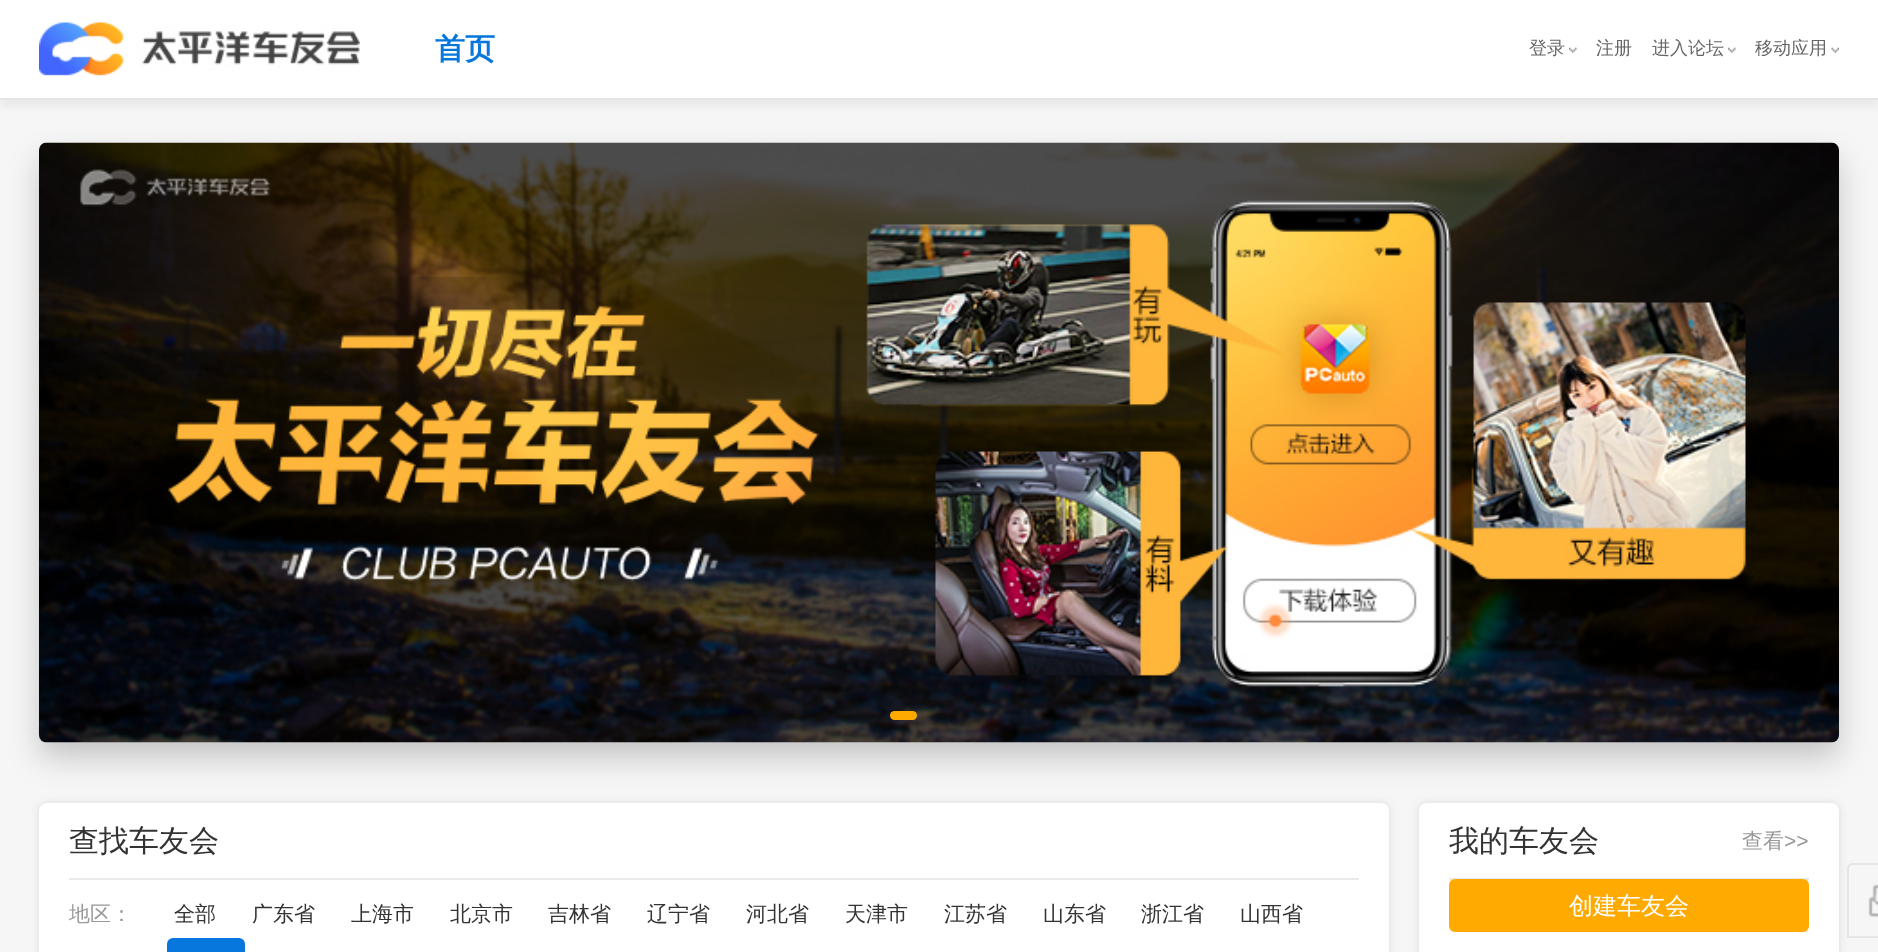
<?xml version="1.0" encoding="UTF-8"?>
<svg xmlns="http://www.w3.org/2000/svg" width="1878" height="952">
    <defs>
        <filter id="blur1" x="-50%" y="-200%" width="200%" height="500%"><feGaussianBlur stdDeviation="4"/></filter>
        <filter id="blur2" x="-50%" y="-200%" width="200%" height="500%"><feGaussianBlur stdDeviation="15"/></filter>
    </defs>
    <rect width="100%" height="100%" fill="#F6F6F6"/>
    <rect x="0" y="8" width="1878" height="99" fill="#000000" fill-opacity="0.05" filter="url(#blur1)"/>
    <rect x="0" y="0" width="1878" height="98" fill="#FFFFFF"/>
    <rect x="0" y="98" width="1878" height="2" fill="#E5E5E5"/>
    <image x="39" y="22" width="321" height="54" href="img_01.png"/>
    <text x="435" y="59" font-family="WenQuanYi Zen Hei" font-size="30" font-weight="700" fill="#0777DD">首页</text>
    <text x="1529" y="54" font-family="WenQuanYi Zen Hei" font-size="18" font-weight="500" fill="#666666">登录</text>
    <image x="1569" y="47" width="8" height="6" href="img_02.png"/>
    <text x="1596" y="54" font-family="WenQuanYi Zen Hei" font-size="18" font-weight="500" fill="#666666">注册</text>
    <text x="1652" y="54" font-family="WenQuanYi Zen Hei" font-size="18" font-weight="500" fill="#666666">进入论坛</text>
    <image x="1728" y="47" width="8" height="6" href="img_02.png"/>
    <text x="1755" y="54" font-family="WenQuanYi Zen Hei" font-size="18" font-weight="500" fill="#666666">移动应用</text>
    <image x="1831" y="47" width="8" height="6" href="img_03.png"/>
    <rect x="39" y="803" width="1350" height="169" rx="8" fill="#000000" fill-opacity="0.1" filter="url(#blur1)"/>
    <rect x="39" y="803" width="1350" height="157" rx="8" fill="#FFFFFF"/>
    <rect x="1419" y="803" width="420" height="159" rx="8" fill="#000000" fill-opacity="0.1" filter="url(#blur1)"/>
    <rect x="1419" y="803" width="420" height="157" rx="8" fill="#FFFFFF"/>
    <rect x="39" y="158" width="1800" height="600" rx="8" fill="#000000" fill-opacity="0.2" filter="url(#blur2)"/>
    <image x="39" y="142" width="1800" height="601" href="img_04.png"/>
    <rect x="890" y="711" width="27" height="9" rx="4.5" fill="#FFAA00"/>
    <text x="69" y="851" font-family="WenQuanYi Zen Hei" font-size="30" font-weight="500" fill="#333333">查找车友会</text>
    <rect x="69" y="878" width="1290" height="2" fill="#E9E9E9"/>
    <text x="69" y="921" font-family="WenQuanYi Zen Hei" font-size="21" font-weight="500" fill="#999999">地区：</text>
    <text x="174" y="921" font-family="WenQuanYi Zen Hei" font-size="21" font-weight="500" fill="#333333">全部</text>
    <text x="252" y="921" font-family="WenQuanYi Zen Hei" font-size="21" font-weight="500" fill="#333333">广东省</text>
    <text x="351" y="921" font-family="WenQuanYi Zen Hei" font-size="21" font-weight="500" fill="#333333">上海市</text>
    <text x="450" y="921" font-family="WenQuanYi Zen Hei" font-size="21" font-weight="500" fill="#333333">北京市</text>
    <text x="548" y="921" font-family="WenQuanYi Zen Hei" font-size="21" font-weight="500" fill="#333333">吉林省</text>
    <text x="647" y="921" font-family="WenQuanYi Zen Hei" font-size="21" font-weight="500" fill="#333333">辽宁省</text>
    <text x="746" y="921" font-family="WenQuanYi Zen Hei" font-size="21" font-weight="500" fill="#333333">河北省</text>
    <text x="845" y="921" font-family="WenQuanYi Zen Hei" font-size="21" font-weight="500" fill="#333333">天津市</text>
    <text x="944" y="921" font-family="WenQuanYi Zen Hei" font-size="21" font-weight="500" fill="#333333">江苏省</text>
    <text x="1043" y="921" font-family="WenQuanYi Zen Hei" font-size="21" font-weight="500" fill="#333333">山东省</text>
    <text x="1141" y="921" font-family="WenQuanYi Zen Hei" font-size="21" font-weight="500" fill="#333333">浙江省</text>
    <text x="1240" y="921" font-family="WenQuanYi Zen Hei" font-size="21" font-weight="500" fill="#333333">山西省</text>
    <rect x="167" y="938" width="78" height="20" rx="6" fill="#0777DD"/>
    <rect x="1449" y="878" width="360" height="2" fill="#E9E9E9"/>
    <text x="1449" y="851" font-family="WenQuanYi Zen Hei" font-size="30" font-weight="500" fill="#333333">我的车友会</text>
    <text x="1742" y="848" font-family="WenQuanYi Zen Hei" font-size="21" font-weight="500" fill="#999999">查看</text>
    <text x="1784" y="848" font-family="Liberation Sans" font-size="21" fill="#999999">&gt;&gt;</text>
    <rect x="1449" y="879" width="360" height="53" rx="6" fill="#FFAA00"/>
    <text x="1569" y="914" font-family="WenQuanYi Zen Hei" font-size="24" font-weight="500" fill="#FFFFFF">创建车友会</text>
    <path d="M 1852 864 H 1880 C 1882 864 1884 866 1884 868 V 937 H 1848 V 868 C 1848 866 1850 864 1852 864 Z" fill="none" stroke="#E5E5E5" stroke-width="2"/>
    <image x="1868" y="884" width="10" height="33" href="img_05.png"/>
</svg>
